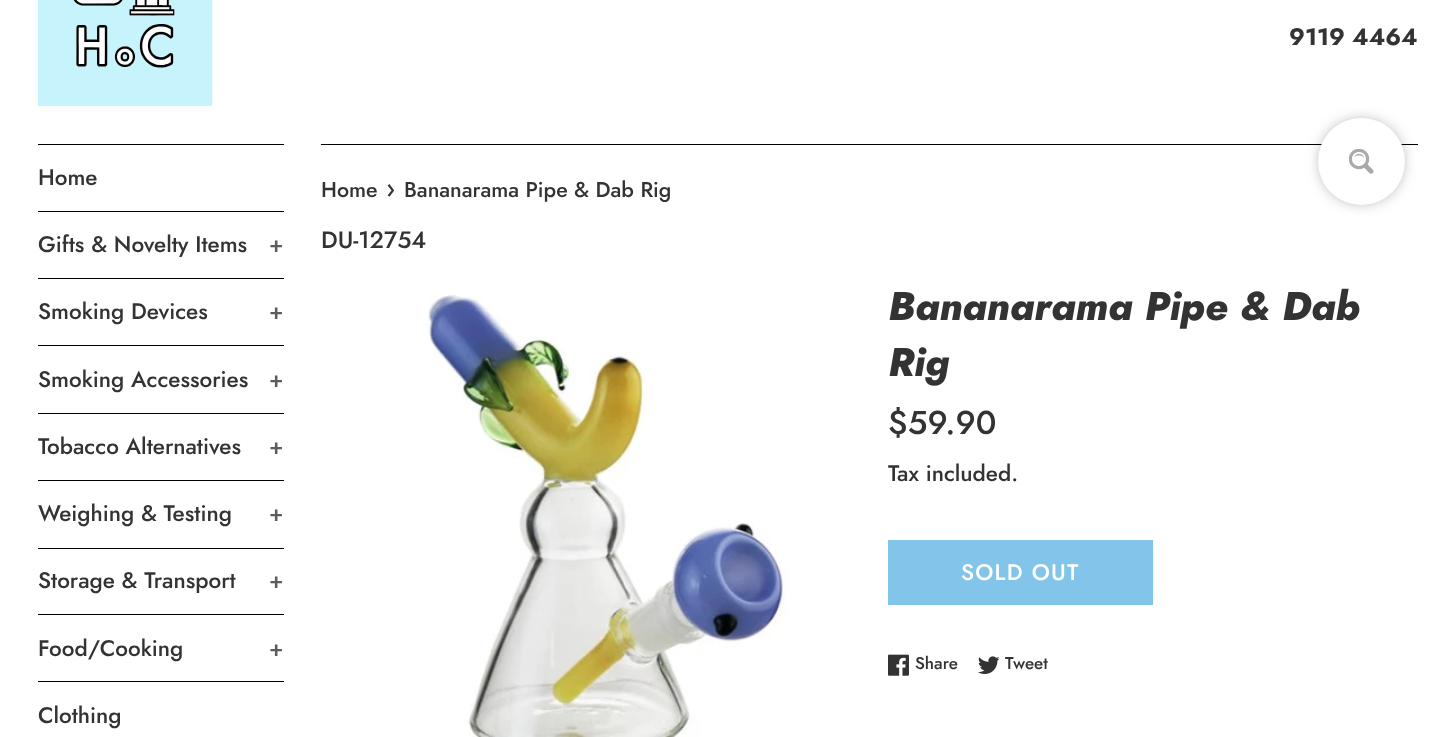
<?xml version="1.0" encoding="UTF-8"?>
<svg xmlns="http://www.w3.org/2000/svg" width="1455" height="737">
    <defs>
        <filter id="blur1" x="-50%" y="-200%" width="200%" height="500%"><feGaussianBlur stdDeviation="9.5"/></filter>
    </defs>
    <rect width="100%" height="100%" fill="#FFFFFF"/>
    <image x="38" y="0" width="175" height="106" href="img_01.png"/>
    <text x="1289" y="45" font-family="Jost" font-size="23.75" font-weight="700" fill="#333333">9119 4464</text>
    <rect x="38" y="144" width="246" height="1" fill="#000000"/>
    <rect x="38" y="211" width="246" height="1" fill="#000000"/>
    <text x="38" y="185" font-family="Jost" font-size="22.5" font-weight="500" fill="#333333">Home</text>
    <rect x="38" y="278" width="246" height="1" fill="#000000"/>
    <text x="38" y="252" font-family="Jost" font-size="22.5" font-weight="500" fill="#333333">Gifts &amp; Novelty Items</text>
    <text x="269" y="252" font-family="Jost" font-size="22.5" font-weight="500" fill="#5C5C5C">+</text>
    <rect x="38" y="345" width="246" height="1" fill="#000000"/>
    <text x="38" y="319" font-family="Jost" font-size="22.5" font-weight="500" fill="#333333">Smoking Devices</text>
    <text x="269" y="319" font-family="Jost" font-size="22.5" font-weight="500" fill="#5C5C5C">+</text>
    <rect x="38" y="413" width="246" height="1" fill="#000000"/>
    <text x="38" y="387" font-family="Jost" font-size="22.5" font-weight="500" fill="#333333">Smoking Accessories</text>
    <text x="269" y="387" font-family="Jost" font-size="22.5" font-weight="500" fill="#5C5C5C">+</text>
    <rect x="38" y="480" width="246" height="1" fill="#000000"/>
    <text x="38" y="454" font-family="Jost" font-size="22.5" font-weight="500" fill="#333333">Tobacco Alternatives</text>
    <text x="269" y="454" font-family="Jost" font-size="22.5" font-weight="500" fill="#5C5C5C">+</text>
    <rect x="38" y="548" width="246" height="1" fill="#000000"/>
    <text x="38" y="521" font-family="Jost" font-size="22.5" font-weight="500" fill="#333333">Weighing &amp; Testing</text>
    <text x="269" y="521" font-family="Jost" font-size="22.5" font-weight="500" fill="#5C5C5C">+</text>
    <rect x="38" y="614" width="246" height="1" fill="#000000"/>
    <text x="38" y="588" font-family="Jost" font-size="22.5" font-weight="500" fill="#333333">Storage &amp; Transport</text>
    <text x="269" y="588" font-family="Jost" font-size="22.5" font-weight="500" fill="#5C5C5C">+</text>
    <rect x="38" y="681" width="246" height="1" fill="#000000"/>
    <text x="38" y="656" font-family="Jost" font-size="22.5" font-weight="500" fill="#333333">Food/Cooking</text>
    <text x="269" y="656" font-family="Jost" font-size="22.5" font-weight="500" fill="#5C5C5C">+</text>
    <text x="38" y="723" font-family="Jost" font-size="22.5" font-weight="500" fill="#333333">Clothing</text>
    <rect x="321" y="144" width="1097" height="1" fill="#000000"/>
    <text x="321" y="197" font-family="Jost" font-size="21.4" font-weight="500" fill="#333333">Home</text>
    <text x="386" y="197" font-family="Jost" font-size="26" font-weight="500" fill="#333333">›</text>
    <text x="404" y="197" font-family="Jost" font-size="21.4" font-weight="500" fill="#333333">Bananarama Pipe &amp; Dab Rig</text>
    <text x="321" y="248" font-family="Jost" font-size="23.75" font-weight="500" fill="#333333">DU-12754</text>
    <image x="427" y="295" width="361" height="442" href="img_02.png"/>
    <text font-family="Jost" font-size="40" font-weight="800" font-style="italic" fill="#333333">
        <tspan x="888" y="320">Bananarama Pipe &amp; Dab</tspan>
        <tspan x="888" y="376">Rig</tspan>
    </text>
    <text x="888" y="434" font-family="Jost" font-size="33" font-weight="500" fill="#333333">$59.90</text>
    <text x="888" y="481" font-family="Jost" font-size="22.5" font-weight="500" fill="#333333">Tax included.</text>
    <rect x="888" y="540" width="265" height="65" fill="#83C5EA"/>
    <text x="961" y="580" font-family="Jost" font-size="22.5" font-weight="500" letter-spacing="1.25" fill="#FFFFFF">SOLD OUT</text>
    <image x="888" y="654" width="21" height="22" href="img_03.png"/>
    <text x="915" y="669" font-family="Jost" font-size="17" font-weight="500" fill="#333333">Share</text>
    <image x="978" y="656" width="22" height="18" href="img_04.png"/>
    <text x="1005" y="669" font-family="Jost" font-size="17" font-weight="500" fill="#333333">Tweet</text>
    <rect x="1328" y="128" width="67" height="67" rx="33.5" fill="#000000" filter="url(#blur1)"/>
    <circle cx="1361.5" cy="161.5" r="43.5" fill="#FFFFFF"/>
    <image x="1349" y="149" width="25" height="25" href="img_05.png"/>
</svg>
